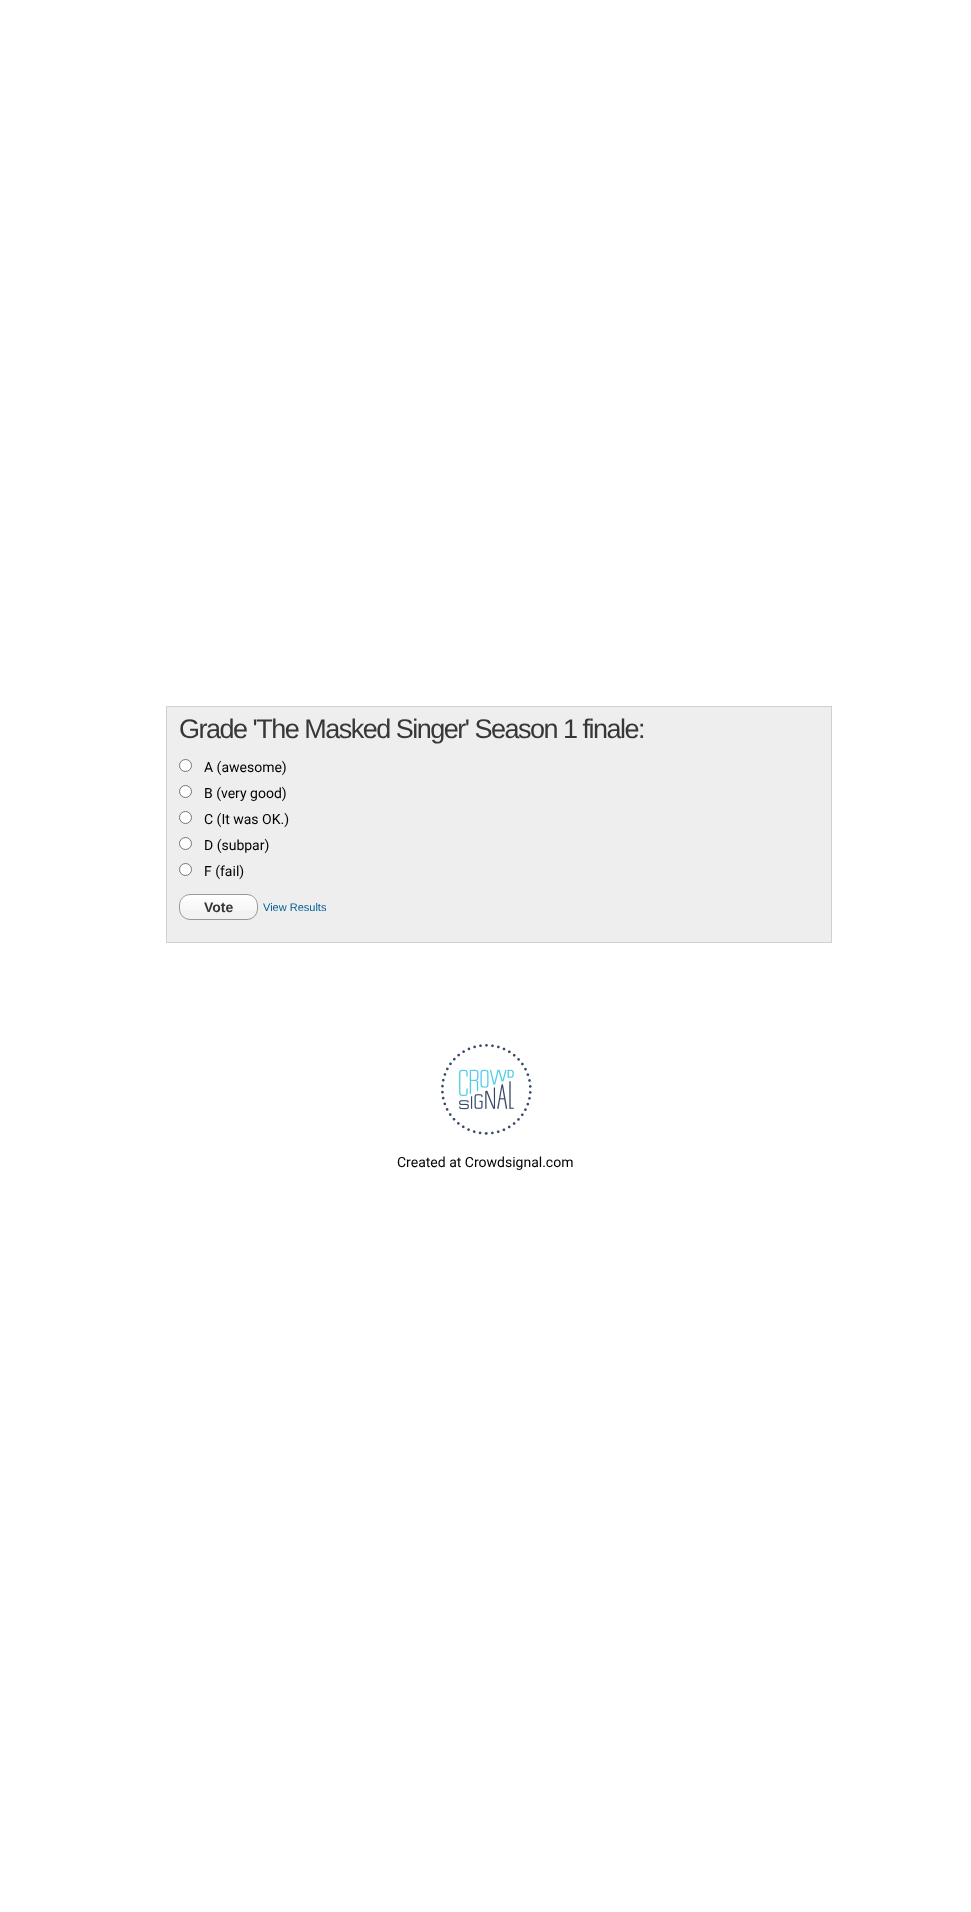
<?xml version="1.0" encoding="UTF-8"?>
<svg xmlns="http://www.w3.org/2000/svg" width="971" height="1912">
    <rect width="100%" height="100%" fill="#FFFFFF"/>
    <rect x="166.5" y="706.5" width="665" height="236" fill="#EEEEEE" stroke="#D0D0D0"/>
    <text x="179" y="738" font-family="Liberation Sans" font-size="27" letter-spacing="-1.5" fill="#373737">Grade 'The Masked Singer' Season 1 finale:</text>
    <circle cx="185.5" cy="765.5" r="6" fill="#FFFFFF" stroke="#767676"/>
    <text x="204" y="772" font-family="Roboto" font-size="14" fill="#000000">A (awesome)</text>
    <circle cx="185.5" cy="791.5" r="6" fill="#FFFFFF" stroke="#767676"/>
    <text x="204" y="798" font-family="Roboto" font-size="14" fill="#000000">B (very good)</text>
    <circle cx="185.5" cy="817.5" r="6" fill="#FFFFFF" stroke="#767676"/>
    <text x="204" y="824" font-family="Roboto" font-size="14" fill="#000000">C (It was OK.)</text>
    <circle cx="185.5" cy="843.5" r="6" fill="#FFFFFF" stroke="#767676"/>
    <text x="204" y="850" font-family="Roboto" font-size="14" fill="#000000">D (subpar)</text>
    <circle cx="185.5" cy="869.5" r="6" fill="#FFFFFF" stroke="#767676"/>
    <text x="204" y="876" font-family="Roboto" font-size="14" fill="#000000">F (fail)</text>
    <rect x="179" y="894" width="79" height="26" rx="11" fill="#F2F2F2"/>
    <image x="179" y="895" width="79" height="16" href="img_01.png"/>
    <rect x="179.5" y="894.5" width="78" height="25" rx="10.5" fill="none" stroke="#999999"/>
    <text x="204" y="912" font-family="Liberation Sans" font-size="14" font-weight="700" fill="#373737">Vote</text>
    <text x="263" y="911" font-family="Liberation Sans" font-size="11" fill="#006094">View Results</text>
    <image x="441" y="1044" width="91" height="91" href="img_02.png"/>
    <text x="397" y="1167" font-family="Roboto" font-size="14" fill="#000000">Created at Crowdsignal.com</text>
</svg>
